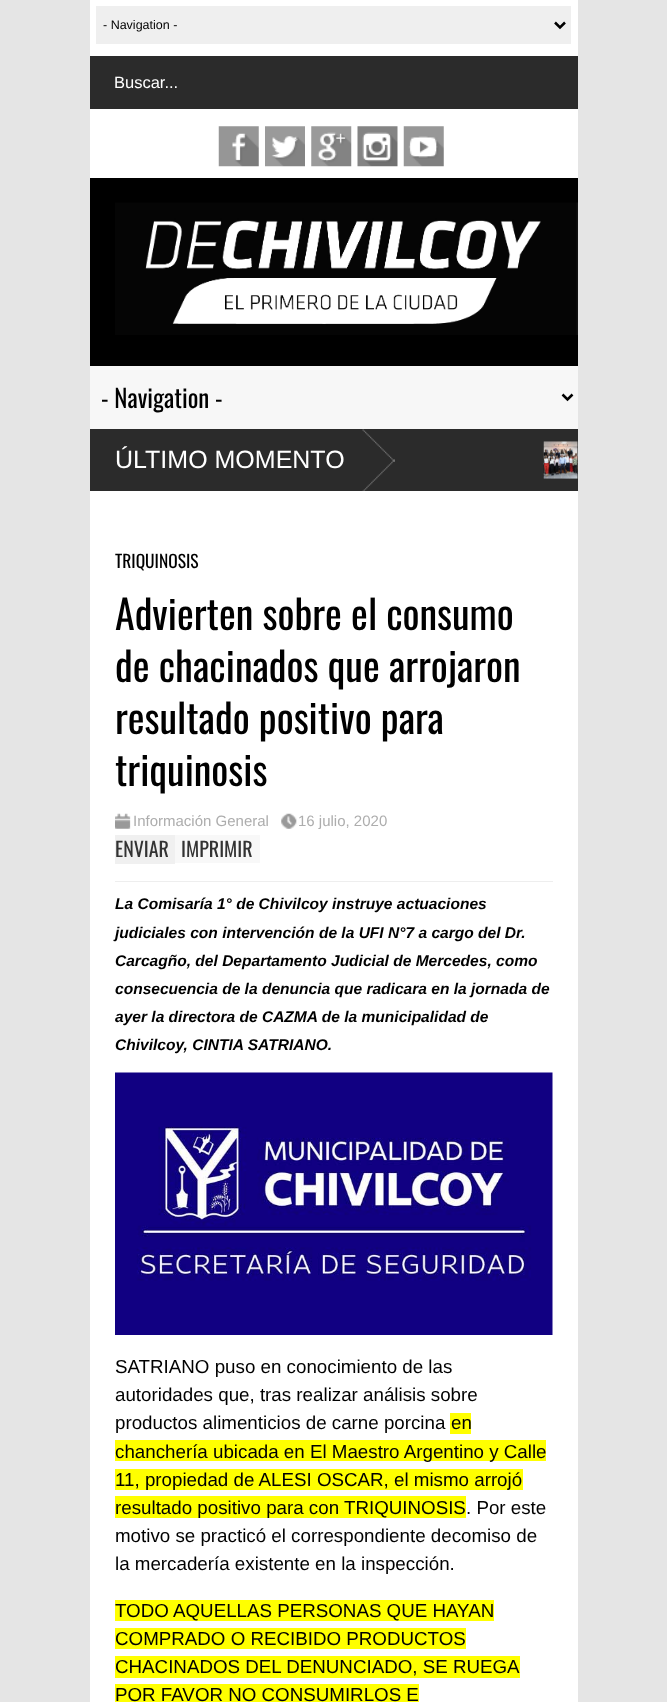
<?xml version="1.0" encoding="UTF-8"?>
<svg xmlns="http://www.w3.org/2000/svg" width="667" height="1702">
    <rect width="100%" height="100%" fill="#E5E5E5"/>
    <rect x="90" y="0" width="488" height="1702" fill="#FFFFFF"/>
    <rect x="96" y="6" width="475" height="38" fill="#EFEFEF"/>
    <path d="M 555 22.5 L 560 27.5 L 565 22.5" fill="none" stroke="#000000" stroke-width="2.5"/>
    <text x="103" y="29" font-family="Liberation Sans" font-size="12.5" fill="#000000">- Navigation -</text>
    <rect x="90" y="56" width="488" height="53" fill="#2B2B2B"/>
    <text x="114" y="88" font-family="Liberation Sans" font-size="16.5" fill="#FFFFFF">Buscar...</text>
    <image x="218" y="126" width="41" height="41" href="img_01.png"/>
    <image x="265" y="126" width="40" height="41" href="img_02.png"/>
    <image x="311" y="126" width="41" height="41" href="img_03.png"/>
    <image x="357" y="126" width="41" height="41" href="img_04.png"/>
    <image x="403" y="126" width="41" height="41" href="img_05.png"/>
    <rect x="90" y="178" width="488" height="188" fill="#000000"/>
    <image x="115" y="202" width="463" height="133" href="img_06.png"/>
    <rect x="90" y="366" width="488" height="63" fill="#F7F7F7"/>
    <path d="M 562.5 394.5 L 567.5 399.5 L 572.5 394.5" fill="none" stroke="#000000" stroke-width="2.5"/>
    <text x="101" y="408" font-family="Oswald" font-size="25" fill="#000000">- Navigation -</text>
    <rect x="90" y="429" width="488" height="62" fill="#2B2B2B"/>
    <image x="362" y="429" width="33" height="62" href="img_07.png"/>
    <text x="115" y="468" font-family="Liberation Sans" font-size="25" fill="#FFFFFF">ÚLTIMO MOMENTO</text>
    <image x="543" y="441" width="35" height="38" href="img_08.png"/>
    <text x="115" y="568" font-family="Oswald" font-size="17.5" fill="#000000">TRIQUINOSIS</text>
    <text font-family="Oswald" font-size="40" fill="#000000">
        <tspan x="115" y="630">Advierten sobre el consumo</tspan>
        <tspan x="115" y="682">de chacinados que arrojaron</tspan>
        <tspan x="115" y="734">resultado positivo para</tspan>
        <tspan x="115" y="786">triquinosis</tspan>
    </text>
    <rect x="115" y="881" width="438" height="1" fill="#EEEEEE"/>
    <image x="115" y="813" width="16" height="16" href="img_09.png"/>
    <text x="133" y="826" font-family="Liberation Sans" font-size="15" fill="#ADADAD">Información General</text>
    <image x="281" y="813" width="16" height="16" href="img_10.png"/>
    <text x="298" y="826" font-family="Liberation Sans" font-size="15" fill="#ADADAD">16 julio, 2020</text>
    <rect x="115" y="835" width="60" height="29" fill="#F0F0F0"/>
    <text x="115" y="857" font-family="Oswald" font-size="20" fill="#333333">ENVIAR</text>
    <rect x="175" y="835" width="85" height="28" fill="#F8F8F8"/>
    <text x="181" y="857" font-family="Oswald" font-size="20" fill="#333333">IMPRIMIR</text>
    <text font-family="Liberation Sans" font-size="15.55" font-weight="700" font-style="italic" fill="#000000">
        <tspan x="115" y="909">La Comisaría 1° de Chivilcoy instruye actuaciones</tspan>
        <tspan x="115" y="938">judiciales con intervención de la UFI N°7 a cargo del Dr.</tspan>
        <tspan x="115" y="966">Carcagño, del Departamento Judicial de Mercedes, como</tspan>
        <tspan x="115" y="994">consecuencia de la denuncia que radicara en la jornada de</tspan>
        <tspan x="115" y="1022">ayer la directora de CAZMA de la municipalidad de</tspan>
        <tspan x="115" y="1050">Chivilcoy, CINTIA SATRIANO.</tspan>
    </text>
    <image x="115" y="1072" width="438" height="263" href="img_11.png"/>
    <text font-family="Liberation Sans" font-size="18.75" fill="#000000">
        <tspan x="115" y="1373">SATRIANO puso en conocimiento de las</tspan>
        <tspan x="115" y="1401">autoridades que, tras realizar análisis sobre</tspan>
        <tspan x="115" y="1429">productos alimenticios de carne porcina</tspan>
    </text>
    <rect x="450" y="1413" width="21" height="21" fill="#FFFF00"/>
    <text x="451" y="1429" font-family="Liberation Sans" font-size="18.75" fill="#000000">en</text>
    <rect x="115" y="1440" width="431" height="21" fill="#FFFF00"/>
    <text x="115" y="1458" font-family="Liberation Sans" font-size="18.75" fill="#000000">chanchería ubicada en El Maestro Argentino y Calle</text>
    <rect x="115" y="1469" width="408" height="21" fill="#FFFF00"/>
    <text x="115" y="1486" font-family="Liberation Sans" font-size="18.75" fill="#000000">11, propiedad de ALESI OSCAR, el mismo arrojó</text>
    <rect x="115" y="1496" width="351" height="22" fill="#FFFF00"/>
    <text x="115" y="1514" font-family="Liberation Sans" font-size="18.75" fill="#000000">resultado positivo para con TRIQUINOSIS</text>
    <text x="466" y="1514" font-family="Liberation Sans" font-size="18.75" fill="#000000">. Por este</text>
    <text font-family="Liberation Sans" font-size="18.75" fill="#000000">
        <tspan x="115" y="1542">motivo se practicó el correspondiente decomiso de</tspan>
        <tspan x="115" y="1570">la mercadería existente en la inspección.</tspan>
    </text>
    <rect x="115" y="1600" width="379" height="21" fill="#FFFF00"/>
    <text x="115" y="1617" font-family="Liberation Sans" font-size="18.75" fill="#000000">TODO AQUELLAS PERSONAS QUE HAYAN</text>
    <rect x="115" y="1628" width="351" height="21" fill="#FFFF00"/>
    <text x="115" y="1645" font-family="Liberation Sans" font-size="18.75" fill="#000000">COMPRADO O RECIBIDO PRODUCTOS</text>
    <rect x="115" y="1656" width="405" height="22" fill="#FFFF00"/>
    <text x="115" y="1673" font-family="Liberation Sans" font-size="18.75" fill="#000000">CHACINADOS DEL DENUNCIADO, SE RUEGA</text>
    <rect x="115" y="1684" width="304" height="18" fill="#FFFF00"/>
    <text x="115" y="1701" font-family="Liberation Sans" font-size="18.75" fill="#000000">POR FAVOR NO CONSUMIRLOS E</text>
</svg>
